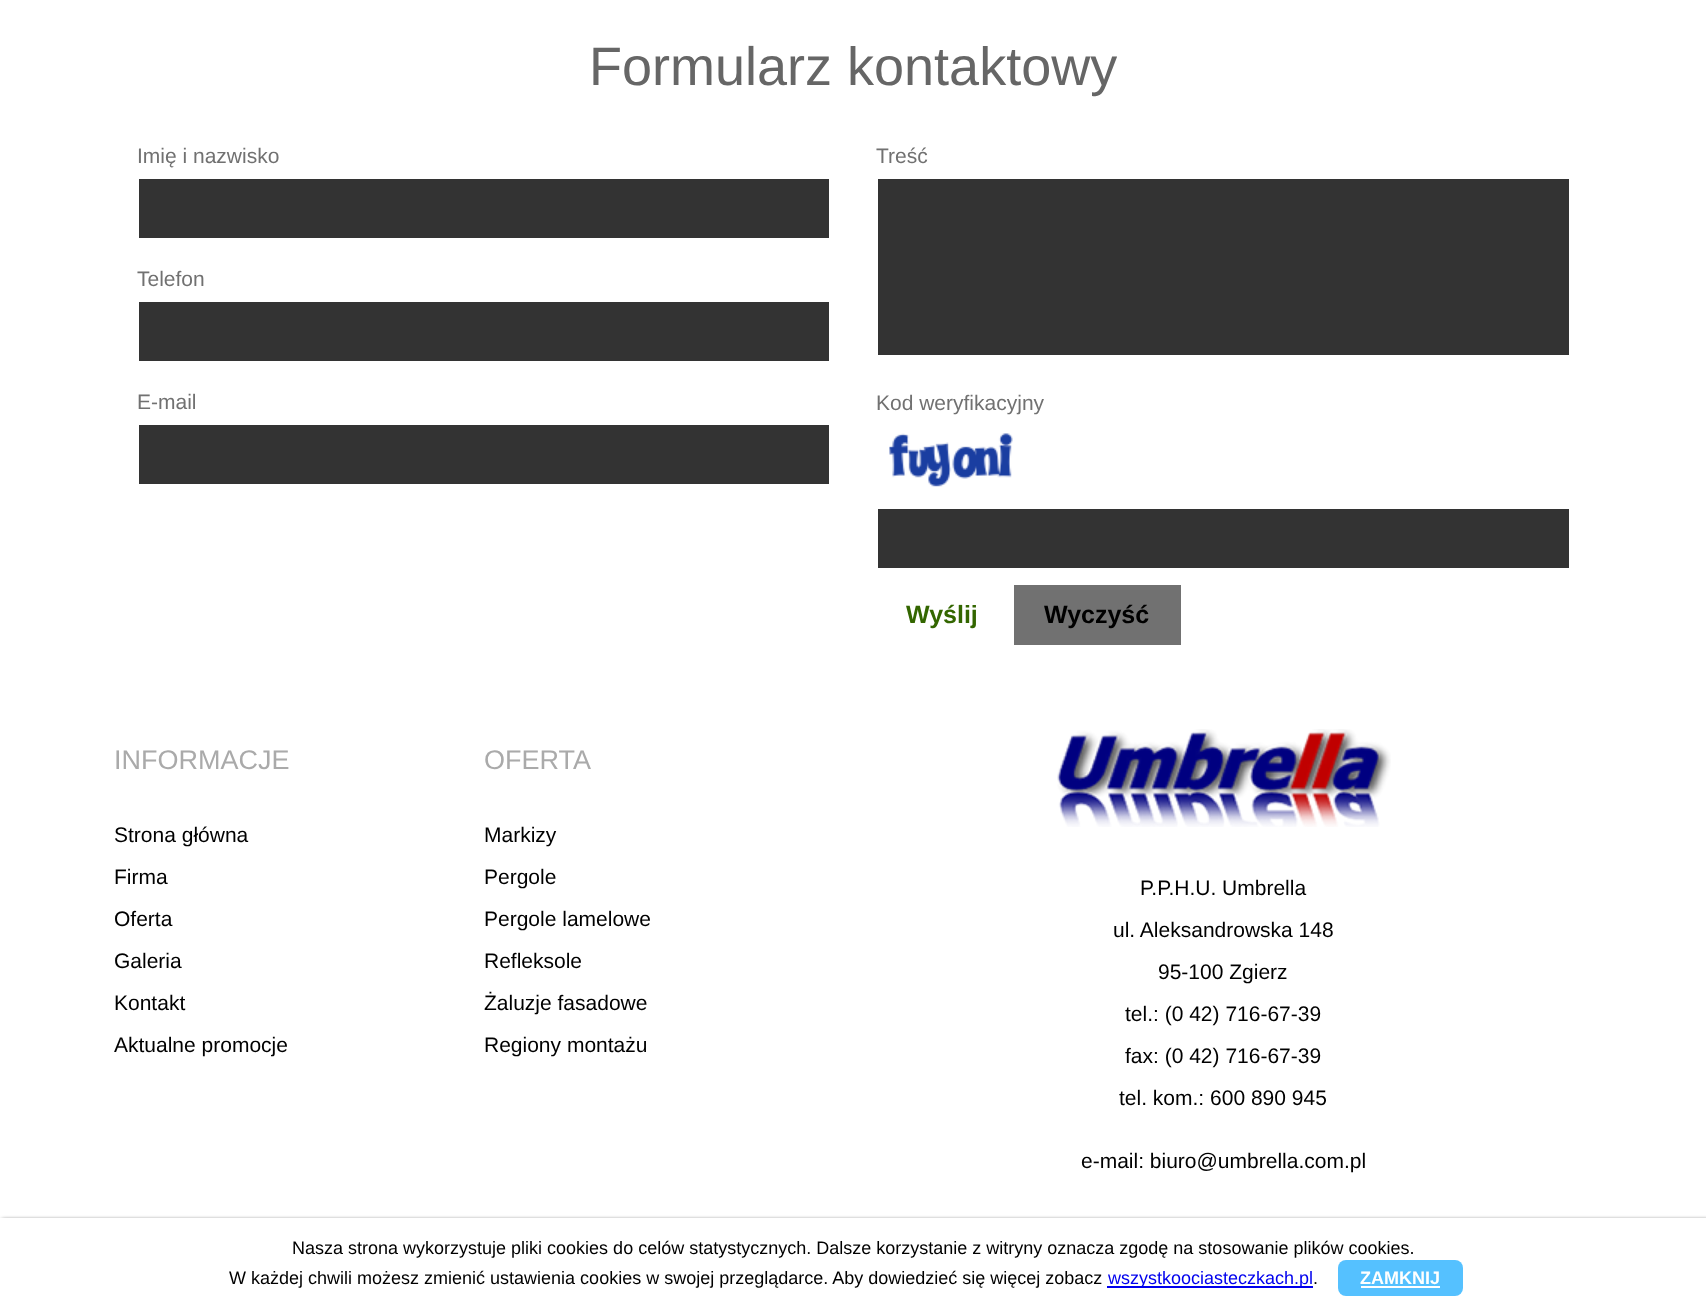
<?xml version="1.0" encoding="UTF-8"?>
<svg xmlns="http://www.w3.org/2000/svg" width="1706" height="1308">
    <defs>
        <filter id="blur1" x="-50%" y="-200%" width="200%" height="500%"><feGaussianBlur stdDeviation="2"/></filter>
    </defs>
    <rect width="100%" height="100%" fill="#FFFFFF"/>
    <text x="589" y="85" font-family="Liberation Sans" font-size="54" fill="#666666">Formularz kontaktowy</text>
    <text x="137" y="163" font-family="Liberation Sans" font-size="21" fill="#717171">Imię i nazwisko</text>
    <rect x="139" y="179" width="690" height="59" fill="#333333"/>
    <text x="137" y="286" font-family="Liberation Sans" font-size="21" fill="#717171">Telefon</text>
    <rect x="139" y="302" width="690" height="59" fill="#333333"/>
    <text x="137" y="409" font-family="Liberation Sans" font-size="21" fill="#717171">E-mail</text>
    <rect x="139" y="425" width="690" height="59" fill="#333333"/>
    <text x="876" y="163" font-family="Liberation Sans" font-size="21" fill="#717171">Treść</text>
    <rect x="878" y="179" width="691" height="176" fill="#333333"/>
    <text x="876" y="410" font-family="Liberation Sans" font-size="21" fill="#717171">Kod weryfikacyjny</text>
    <image x="889" y="433" width="124" height="54" href="img_01.png"/>
    <rect x="878" y="509" width="691" height="59" fill="#333333"/>
    <text x="906" y="623" font-family="Liberation Sans" font-size="25" font-weight="700" fill="#336600">Wyślij</text>
    <rect x="1014" y="585" width="167" height="60" fill="#717171"/>
    <text x="1044" y="623" font-family="Liberation Sans" font-size="25" font-weight="700" fill="#000000">Wyczyść</text>
    <text x="114" y="769" font-family="Liberation Sans" font-size="27" fill="#AAAAAA">INFORMACJE</text>
    <text x="114" y="842" font-family="Liberation Sans" font-size="21" fill="#000000">Strona główna</text>
    <text x="114" y="884" font-family="Liberation Sans" font-size="21" fill="#000000">Firma</text>
    <text x="114" y="926" font-family="Liberation Sans" font-size="21" fill="#000000">Oferta</text>
    <text x="114" y="968" font-family="Liberation Sans" font-size="21" fill="#000000">Galeria</text>
    <text x="114" y="1010" font-family="Liberation Sans" font-size="21" fill="#000000">Kontakt</text>
    <text x="114" y="1052" font-family="Liberation Sans" font-size="21" fill="#000000">Aktualne promocje</text>
    <text x="484" y="769" font-family="Liberation Sans" font-size="27" fill="#AAAAAA">OFERTA</text>
    <text x="484" y="842" font-family="Liberation Sans" font-size="21" fill="#000000">Markizy</text>
    <text x="484" y="884" font-family="Liberation Sans" font-size="21" fill="#000000">Pergole</text>
    <text x="484" y="926" font-family="Liberation Sans" font-size="21" fill="#000000">Pergole lamelowe</text>
    <text x="484" y="968" font-family="Liberation Sans" font-size="21" fill="#000000">Refleksole</text>
    <text x="484" y="1010" font-family="Liberation Sans" font-size="21" fill="#000000">Żaluzje fasadowe</text>
    <text x="484" y="1052" font-family="Liberation Sans" font-size="21" fill="#000000">Regiony montażu</text>
    <image x="1057" y="729" width="334" height="98" href="img_02.png"/>
    <text x="1140" y="895" font-family="Liberation Sans" font-size="21" fill="#000000">P.P.H.U. Umbrella</text>
    <text x="1113" y="937" font-family="Liberation Sans" font-size="21" fill="#000000">ul. Aleksandrowska 148</text>
    <text x="1158" y="979" font-family="Liberation Sans" font-size="21" fill="#000000">95-100 Zgierz</text>
    <text x="1125" y="1021" font-family="Liberation Sans" font-size="21" fill="#000000">tel.: (0 42) 716-67-39</text>
    <text x="1125" y="1063" font-family="Liberation Sans" font-size="21" fill="#000000">fax: (0 42) 716-67-39</text>
    <text x="1119" y="1105" font-family="Liberation Sans" font-size="21" fill="#000000">tel. kom.: 600 890 945</text>
    <text x="1081" y="1168" font-family="Liberation Sans" font-size="21" fill="#000000">e-mail: biuro@umbrella.com.pl</text>
    <rect x="2" y="1220" width="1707" height="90" fill="#000000" filter="url(#blur1)"/>
    <rect x="0" y="1218" width="1706" height="90" fill="#FFFFFF"/>
    <text x="292" y="1254" font-family="Liberation Sans" font-size="18" fill="#000000">Nasza strona wykorzystuje pliki cookies do celów statystycznych. Dalsze korzystanie z witryny oznacza zgodę na stosowanie plików cookies.</text>
    <text x="229" y="1284" font-family="Liberation Sans" font-size="18" fill="#000000">W każdej chwili możesz zmienić ustawienia cookies w swojej przeglądarce. Aby dowiedzieć się więcej zobacz</text>
    <rect x="1107" y="1286" width="206" height="2" fill="#0000EE"/>
    <text x="1108" y="1284" font-family="Liberation Sans" font-size="18" fill="#0000EE">wszystkoociasteczkach.pl</text>
    <text x="1313" y="1284" font-family="Liberation Sans" font-size="18" fill="#000000">.</text>
    <rect x="1338" y="1260" width="125" height="36" rx="8" fill="#55C1FF"/>
    <text x="1360" y="1284" font-family="Liberation Sans" font-size="18" font-weight="700" fill="#FFFFFF">ZAMKNIJ</text>
    <rect x="1361" y="1286" width="79" height="2" fill="#FFFFFF"/>
</svg>
